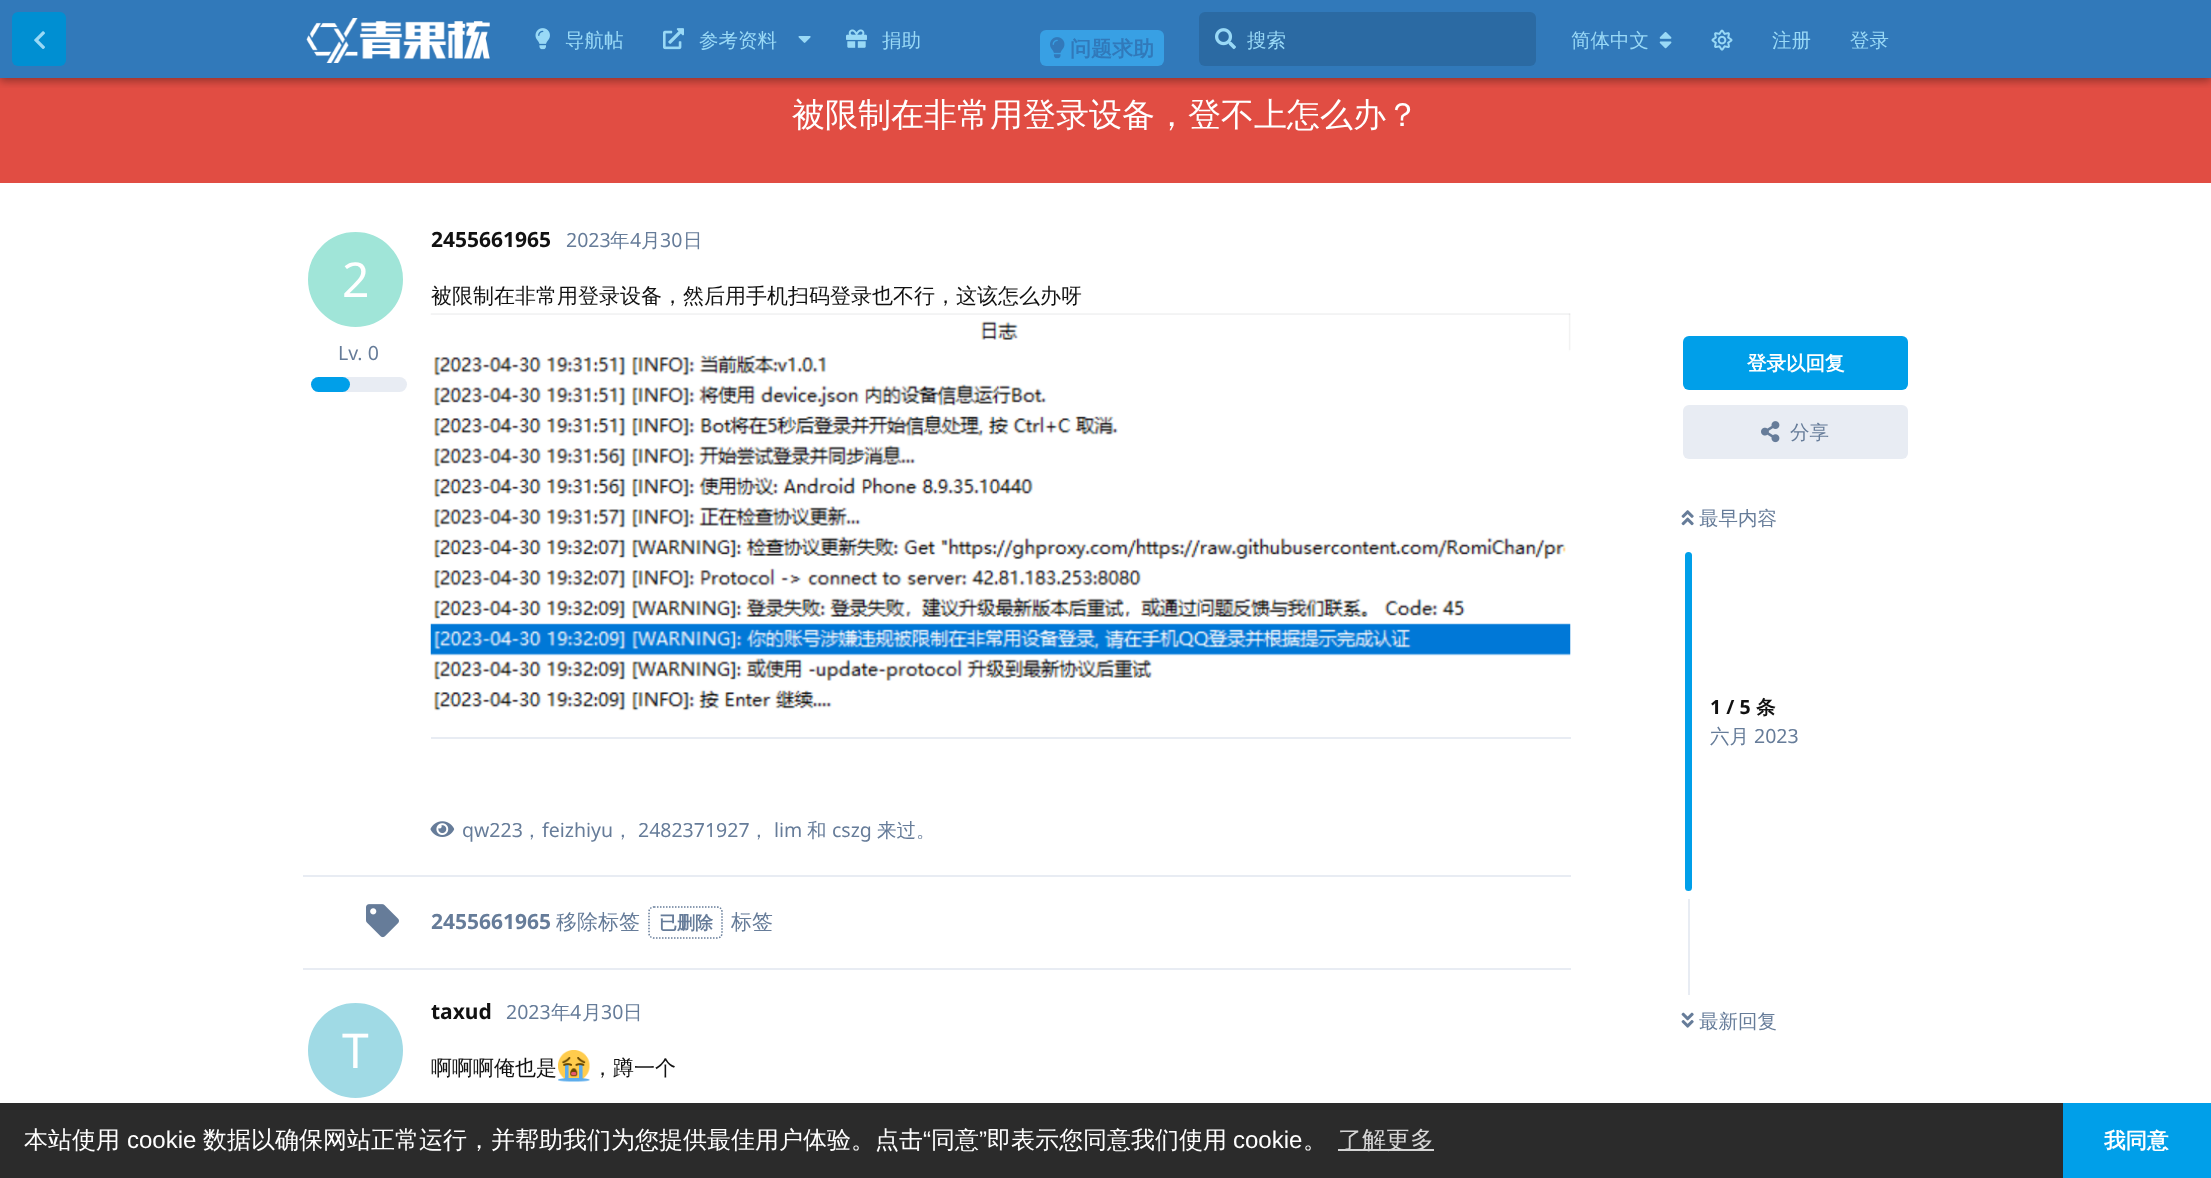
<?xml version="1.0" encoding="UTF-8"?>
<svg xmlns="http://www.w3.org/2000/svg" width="2211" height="1178">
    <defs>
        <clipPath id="clip1"><rect x="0" y="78" width="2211" height="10"/></clipPath>
        <filter id="blur1" x="-50%" y="-200%" width="200%" height="500%"><feGaussianBlur stdDeviation="4.5"/></filter>
    </defs>
    <rect width="100%" height="100%" fill="#FFFFFF"/>
    <rect x="0" y="78" width="2211" height="105" fill="#E14D43"/>
    <rect x="0" y="0" width="2211" height="78" fill="#3179BA"/>
    <rect x="1040" y="30" width="124" height="36" rx="6" fill="#38A0E4"/>
    <image x="1050" y="37" width="15" height="22" href="img_10.png"/>
    <g clip-path="url(#clip1)">
        <rect x="0" y="3" width="2211" height="78" fill="#000000" fill-opacity="0.35" filter="url(#blur1)"/>
    </g>
    <rect x="12" y="12" width="54" height="54" rx="6" fill="#008FD2"/>
    <image x="34" y="31" width="11" height="18" href="img_01.png"/>
    <image x="306" y="18" width="184" height="45" href="img_02.png"/>
    <image x="535" y="28" width="15" height="22" href="img_03.png"/>
    <text x="565" y="47" font-family="WenQuanYi Zen Hei" font-size="19.5" font-weight="500" fill="#99D9F6">导航帖</text>
    <image x="663" y="28" width="21" height="22" href="img_04.png"/>
    <text x="699" y="47" font-family="WenQuanYi Zen Hei" font-size="19.5" font-weight="500" fill="#99D9F6">参考资料</text>
    <image x="798" y="36" width="13" height="7" href="img_05.png"/>
    <image x="846" y="29" width="21" height="19" href="img_06.png"/>
    <text x="882" y="47" font-family="WenQuanYi Zen Hei" font-size="19.5" font-weight="500" fill="#99D9F6">捐助</text>
    <rect x="1199" y="12" width="337" height="54" rx="6" fill="#2B6AA3"/>
    <image x="1215" y="28" width="21" height="22" href="img_07.png"/>
    <text x="1247" y="47" font-family="WenQuanYi Zen Hei" font-size="19.5" font-weight="500" fill="#99D9F6">搜索</text>
    <text x="1571" y="47" font-family="WenQuanYi Zen Hei" font-size="19.5" font-weight="500" fill="#99D9F6">简体中文</text>
    <image x="1659" y="32" width="13" height="17" href="img_08.png"/>
    <image x="1711" y="29" width="22" height="22" href="img_09.png"/>
    <text x="1772" y="47" font-family="WenQuanYi Zen Hei" font-size="19.5" font-weight="500" fill="#99D9F6">注册</text>
    <text x="1850" y="47" font-family="WenQuanYi Zen Hei" font-size="19.5" font-weight="500" fill="#99D9F6">登录</text>
    <text x="1070" y="56" font-family="WenQuanYi Zen Hei" font-size="21" font-weight="700" fill="#3179BA">问题求助</text>
    <text x="792" y="126" font-family="WenQuanYi Zen Hei" font-size="33" font-weight="500" fill="#FFFFFF">被限制在非常用登录设备，登不上怎么办？</text>
    <rect x="303" y="875" width="1268" height="2" fill="#E8ECF3"/>
    <text x="431" y="247" font-family="Noto Sans" font-size="21" font-weight="700" fill="#111111">2455661965</text>
    <circle cx="355.5" cy="279.5" r="50" fill="#A0E5D8" stroke="#FFFFFF" stroke-width="5"/>
    <text x="342" y="297" font-family="Noto Sans" font-size="48" fill="#FFFFFF">2</text>
    <text x="338" y="360" font-family="Noto Sans" font-size="19.5" fill="#667C99">Lv. 0</text>
    <rect x="311" y="377" width="96" height="15" rx="7.5" fill="#E8ECF3"/>
    <rect x="311" y="377" width="39" height="15" rx="7.5" fill="#009FE9"/>
    <text x="566" y="247" font-family="Noto Sans" font-size="19.5" fill="#667C99">2023</text>
    <text x="610" y="247" font-family="WenQuanYi Zen Hei" font-size="19.5" font-weight="500" fill="#667C99">年</text>
    <text x="630" y="247" font-family="Noto Sans" font-size="19.5" fill="#667C99">4</text>
    <text x="641" y="247" font-family="WenQuanYi Zen Hei" font-size="19.5" font-weight="500" fill="#667C99">月</text>
    <text x="660" y="247" font-family="Noto Sans" font-size="19.5" fill="#667C99">30</text>
    <text x="683" y="247" font-family="WenQuanYi Zen Hei" font-size="19.5" font-weight="500" fill="#667C99">日</text>
    <text x="431" y="303" font-family="WenQuanYi Zen Hei" font-size="21" font-weight="500" fill="#111111">被限制在非常用登录设备，然后用手机扫码登录也不行，这该怎么办呀</text>
    <image x="430" y="313" width="1141" height="398" href="img_11.png"/>
    <rect x="431" y="737" width="1140" height="2" fill="#E8ECF3"/>
    <image x="430" y="821" width="25" height="16" href="img_12.png"/>
    <text x="462" y="837" font-family="Noto Sans" font-size="19.5" fill="#667C99">qw223</text>
    <text x="522" y="837" font-family="WenQuanYi Zen Hei" font-size="19.5" font-weight="500" fill="#667C99">，</text>
    <text x="542" y="837" font-family="Noto Sans" font-size="19.5" fill="#667C99">feizhiyu</text>
    <text x="613" y="837" font-family="WenQuanYi Zen Hei" font-size="19.5" font-weight="500" fill="#667C99">，</text>
    <text x="638" y="837" font-family="Noto Sans" font-size="19.5" fill="#667C99">2482371927</text>
    <text x="749" y="837" font-family="WenQuanYi Zen Hei" font-size="19.5" font-weight="500" fill="#667C99">，</text>
    <text x="774" y="837" font-family="Noto Sans" font-size="19.5" fill="#667C99">lim</text>
    <text x="807" y="837" font-family="WenQuanYi Zen Hei" font-size="19.5" font-weight="500" fill="#667C99">和</text>
    <text x="832" y="837" font-family="Noto Sans" font-size="19.5" fill="#667C99">cszg</text>
    <text x="877" y="837" font-family="WenQuanYi Zen Hei" font-size="19.5" font-weight="500" fill="#667C99">来过。</text>
    <rect x="303" y="968" width="1268" height="2" fill="#E8ECF3"/>
    <image x="366" y="904" width="33" height="34" href="img_13.png"/>
    <text x="431" y="929" font-family="Noto Sans" font-size="21" font-weight="700" fill="#667C99">2455661965</text>
    <text x="556" y="929" font-family="WenQuanYi Zen Hei" font-size="21" font-weight="500" fill="#667C99">移除标签</text>
    <path d="M 654 907 H 717 C 720 907 722 909 722 912 V 933 C 722 936 720 938 717 938 H 654 C 651 938 649 936 649 933 V 912 C 649 909 651 907 654 907 Z" fill="none" stroke="#667C99" stroke-width="1.5" stroke-dasharray="1.5 1.5"/>
    <text x="659" y="929" font-family="WenQuanYi Zen Hei" font-size="18" font-weight="700" fill="#667C99">已删除</text>
    <text x="731" y="929" font-family="WenQuanYi Zen Hei" font-size="21" font-weight="500" fill="#667C99">标签</text>
    <text x="431" y="1019" font-family="Noto Sans" font-size="21" font-weight="700" fill="#111111">taxud</text>
    <circle cx="355.5" cy="1050.5" r="50" fill="#A0DAE5" stroke="#FFFFFF" stroke-width="5"/>
    <text x="342" y="1068" font-family="Noto Sans" font-size="48" fill="#FFFFFF">T</text>
    <text x="506" y="1019" font-family="Noto Sans" font-size="19.5" fill="#667C99">2023</text>
    <text x="551" y="1019" font-family="WenQuanYi Zen Hei" font-size="19.5" font-weight="500" fill="#667C99">年</text>
    <text x="570" y="1019" font-family="Noto Sans" font-size="19.5" fill="#667C99">4</text>
    <text x="582" y="1019" font-family="WenQuanYi Zen Hei" font-size="19.5" font-weight="500" fill="#667C99">月</text>
    <text x="601" y="1019" font-family="Noto Sans" font-size="19.5" fill="#667C99">30</text>
    <text x="623" y="1019" font-family="WenQuanYi Zen Hei" font-size="19.5" font-weight="500" fill="#667C99">日</text>
    <text x="431" y="1075" font-family="WenQuanYi Zen Hei" font-size="21" font-weight="500" fill="#111111">啊啊啊俺也是</text>
    <image x="558" y="1050" width="32" height="32" href="img_14.png"/>
    <text x="592" y="1075" font-family="WenQuanYi Zen Hei" font-size="21" font-weight="500" fill="#111111">，蹲一个</text>
    <rect x="1683" y="336" width="225" height="54" rx="6" fill="#009FE9"/>
    <text x="1747" y="370" font-family="WenQuanYi Zen Hei" font-size="19.5" font-weight="700" fill="#FFFFFF">登录以回复</text>
    <rect x="1683" y="405" width="225" height="54" rx="6" fill="#E8ECF3"/>
    <image x="1761" y="421" width="19" height="22" href="img_15.png"/>
    <text x="1790" y="439" font-family="WenQuanYi Zen Hei" font-size="19.5" font-weight="500" fill="#667C99">分享</text>
    <image x="1681" y="510" width="13" height="16" href="img_16.png"/>
    <text x="1699" y="525" font-family="WenQuanYi Zen Hei" font-size="19.5" font-weight="500" fill="#667C99">最早内容</text>
    <rect x="1685" y="552" width="7" height="339" rx="3.5" fill="#009FE9"/>
    <text x="1710" y="714" font-family="Noto Sans" font-size="19.5" font-weight="700" fill="#111111">1 / 5</text>
    <text x="1756" y="714" font-family="WenQuanYi Zen Hei" font-size="19.5" font-weight="700" fill="#111111">条</text>
    <text x="1710" y="743" font-family="WenQuanYi Zen Hei" font-size="19.5" font-weight="500" fill="#667C99">六月</text>
    <text x="1754" y="743" font-family="Noto Sans" font-size="19.5" fill="#667C99">2023</text>
    <rect x="1688" y="899" width="2" height="96" fill="#E8ECF3"/>
    <image x="1681" y="1012" width="13" height="16" href="img_17.png"/>
    <text x="1699" y="1028" font-family="WenQuanYi Zen Hei" font-size="19.5" font-weight="500" fill="#667C99">最新回复</text>
    <rect x="0" y="1103" width="2063" height="75" fill="#2B2B2B"/>
    <text x="24" y="1148" font-family="WenQuanYi Zen Hei" font-size="24" font-weight="500" fill="#FFFFFF">本站使用</text>
    <text x="127" y="1148" font-family="Liberation Sans" font-size="24" fill="#FFFFFF">cookie</text>
    <text x="203" y="1148" font-family="WenQuanYi Zen Hei" font-size="24" font-weight="500" fill="#FFFFFF">数据以确保网站正常运行，并帮助我们为您提供最佳用户体验。点击</text>
    <text x="923" y="1148" font-family="Liberation Sans" font-size="24" fill="#FFFFFF">“</text>
    <text x="931" y="1148" font-family="WenQuanYi Zen Hei" font-size="24" font-weight="500" fill="#FFFFFF">同意</text>
    <text x="979" y="1148" font-family="Liberation Sans" font-size="24" fill="#FFFFFF">”</text>
    <text x="987" y="1148" font-family="WenQuanYi Zen Hei" font-size="24" font-weight="500" fill="#FFFFFF">即表示您同意我们使用</text>
    <text x="1233" y="1148" font-family="Liberation Sans" font-size="24" fill="#FFFFFF">cookie</text>
    <rect x="1338" y="1149" width="96" height="2" fill="#D5D5D5"/>
    <text x="1338" y="1148" font-family="WenQuanYi Zen Hei" font-size="24" font-weight="500" fill="#D5D5D5">了解更多</text>
    <text x="1303" y="1148" font-family="WenQuanYi Zen Hei" font-size="24" font-weight="500" fill="#FFFFFF">。</text>
    <rect x="2063" y="1103" width="148" height="75" fill="#009FE9"/>
    <text x="2104" y="1148" font-family="WenQuanYi Zen Hei" font-size="21.5" font-weight="700" fill="#FFFFFF">我同意</text>
</svg>
